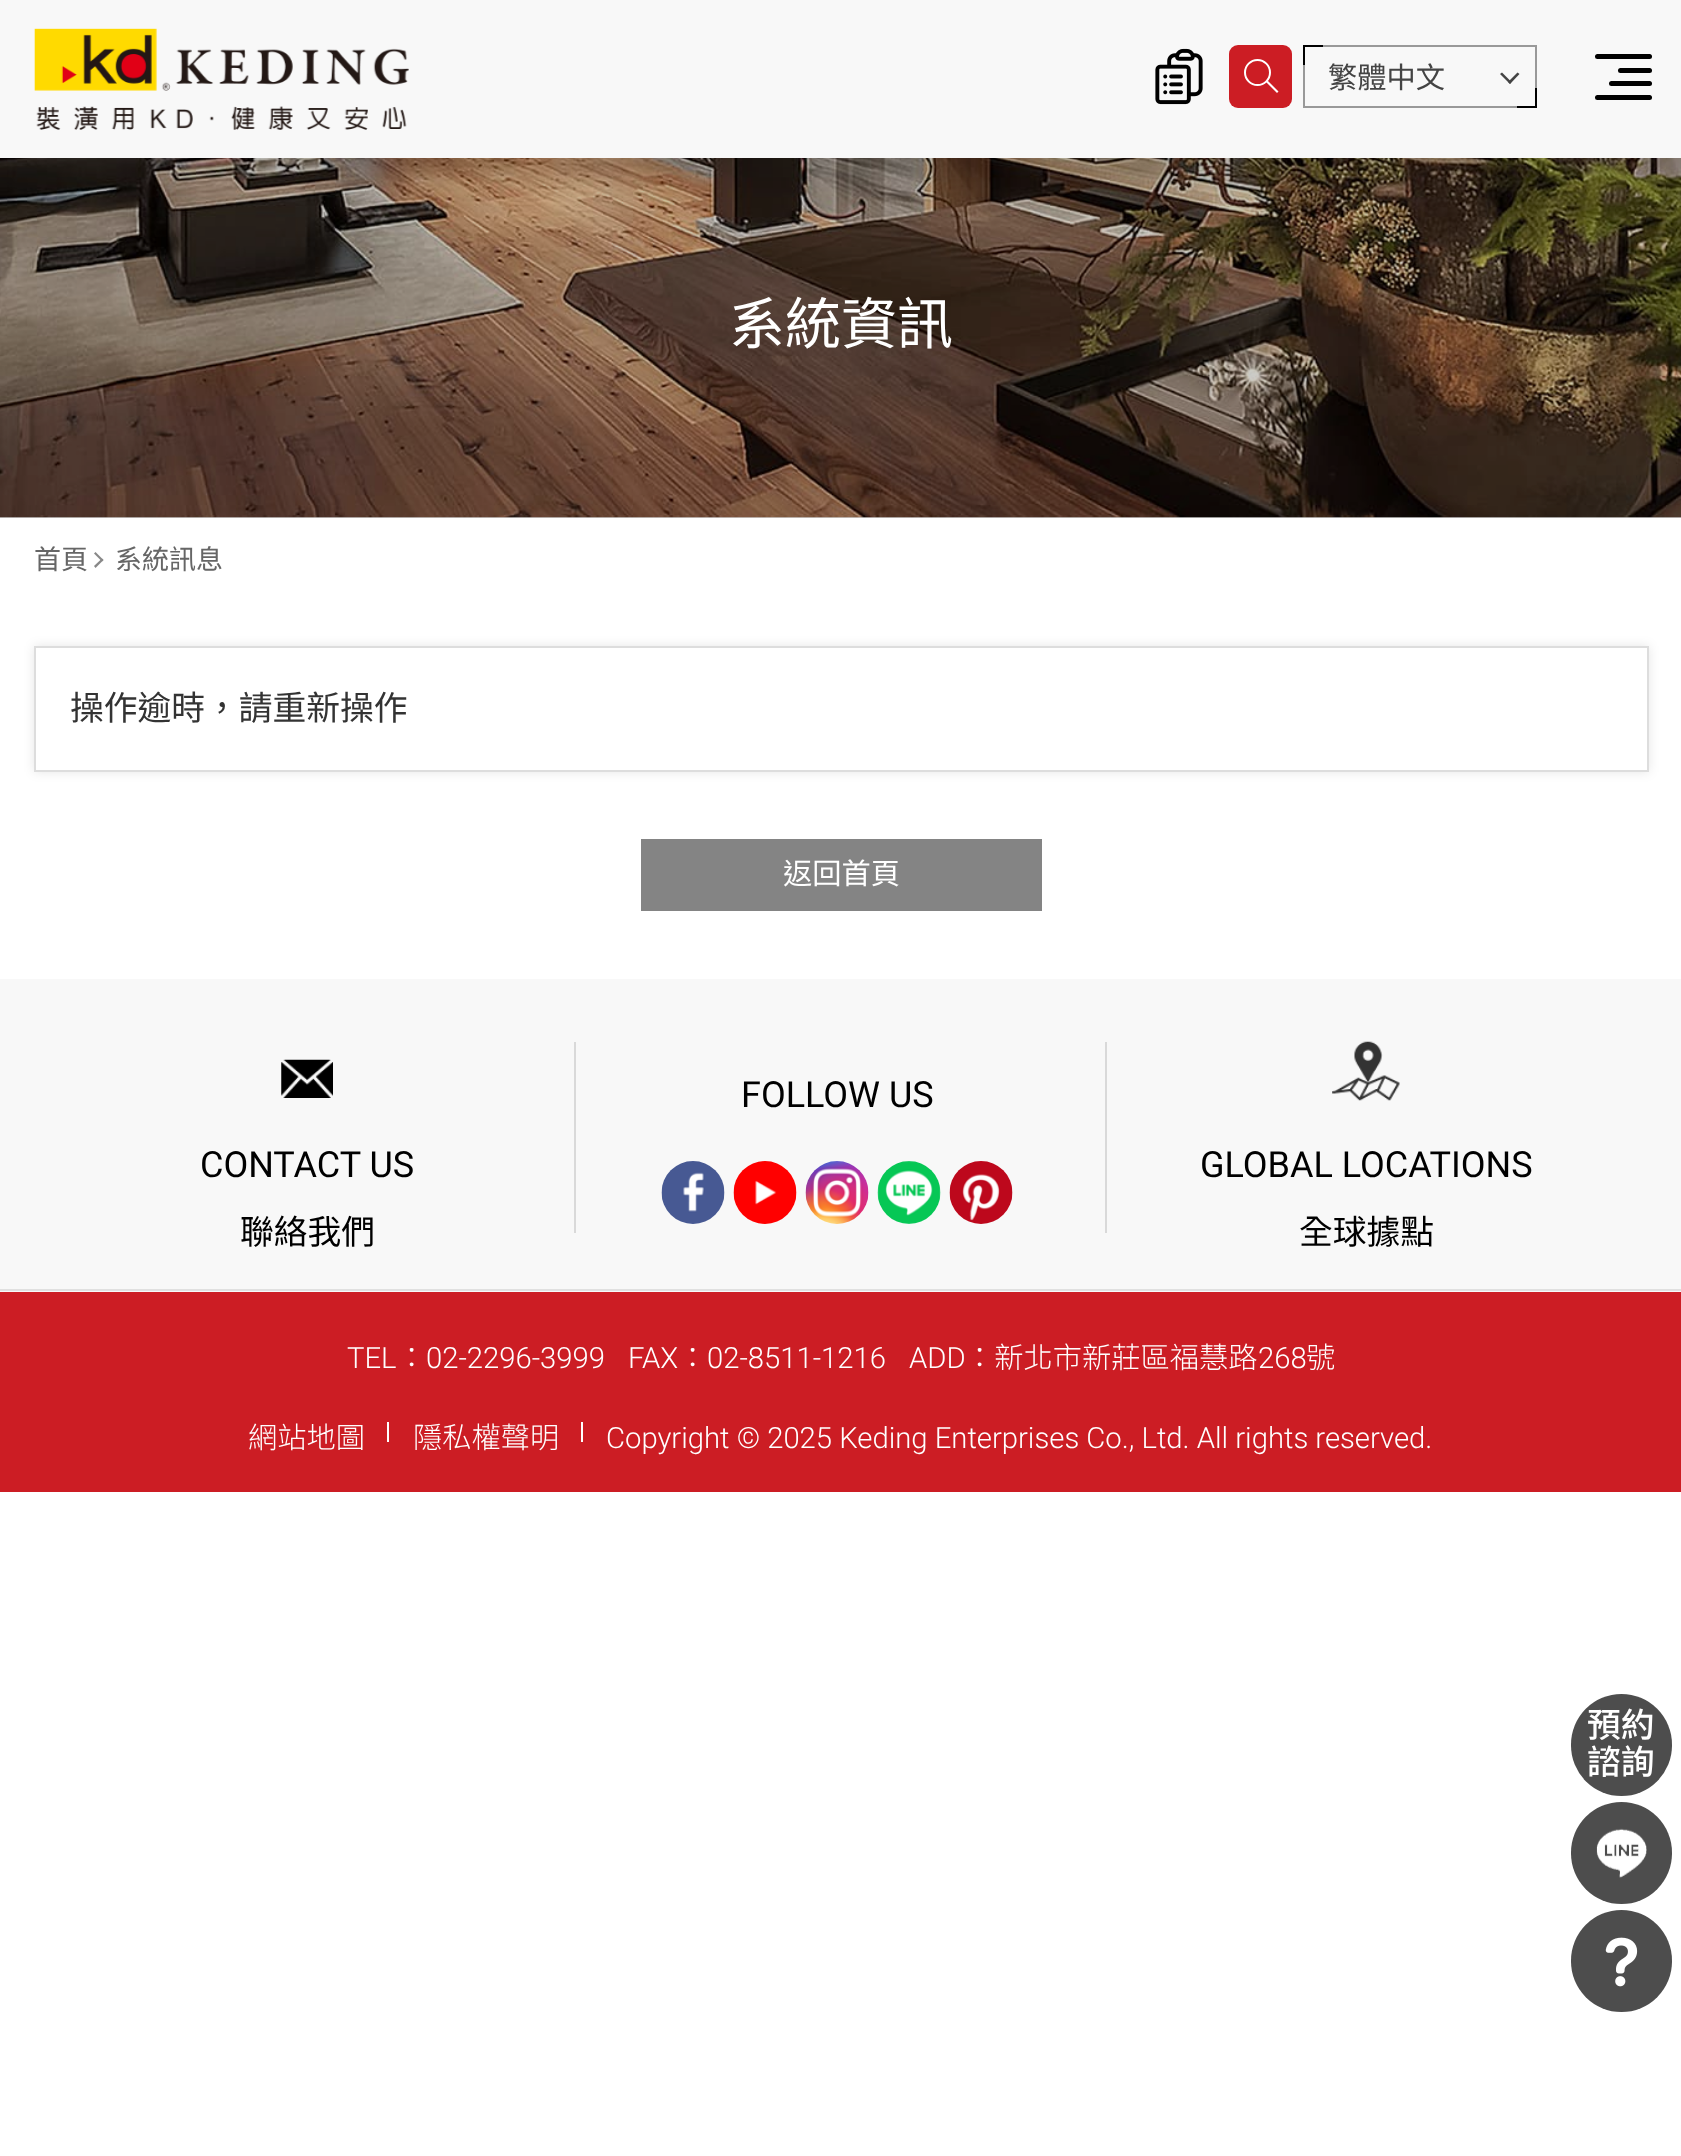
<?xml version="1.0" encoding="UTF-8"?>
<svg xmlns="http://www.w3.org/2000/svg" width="1681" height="2156">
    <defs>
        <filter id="blur1" x="-50%" y="-200%" width="200%" height="500%"><feGaussianBlur stdDeviation="17"/></filter>
        <clipPath id="clip1"><path d="M 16 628 H 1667 V 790 H 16 Z M 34 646 H 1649 V 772 H 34 Z" clip-rule="evenodd"/></clipPath>
        <filter id="blur2" x="-50%" y="-200%" width="200%" height="500%"><feGaussianBlur stdDeviation="5.5"/></filter>
    </defs>
    <rect width="100%" height="100%" fill="#FFFFFF"/>
    <rect x="0" y="517" width="1681" height="1" fill="#CCCCCC"/>
    <image x="0" y="158" width="1681" height="360" href="img_03.png"/>
    <rect x="0" y="23" width="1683" height="157" fill="#000000" fill-opacity="0.1" filter="url(#blur1)"/>
    <rect x="0" y="0" width="1681" height="158" fill="#F8F8F8"/>
    <image x="34" y="28" width="375" height="102" href="img_01.png"/>
    <image x="1155" y="48" width="48" height="57" href="img_02.png"/>
    <rect x="1229" y="45" width="63" height="63" rx="9" fill="#CC1D24"/>
    <circle cx="1257.5" cy="72.5" r="12.5" fill="none" stroke="#FFFFFF" stroke-width="2"/>
    <path d="M 1267.5 80.5 L 1278.5 91.5 L 1277 93 L 1266 82 Z" fill="#FFFFFF"/>
    <rect x="1304" y="46" width="232" height="61" fill="none" stroke="#999999" stroke-width="2"/>
    <rect x="1303" y="45" width="20" height="2" fill="#010101"/>
    <rect x="1303" y="45" width="2" height="20" fill="#010101"/>
    <text x="1328" y="88" font-family="Noto Sans TC" font-size="29.25" fill="#444444">繁體中文</text>
    <path d="M 1517.5 72.5 L 1519.5 74 L 1510 84 L 1508 82 Z" fill="#444444"/>
    <path d="M 1502 72.5 L 1511.5 82 L 1510 84 L 1500 74 Z" fill="#444444"/>
    <rect x="1535" y="88" width="2" height="20" fill="#010101"/>
    <rect x="1517" y="106" width="20" height="2" fill="#010101"/>
    <rect x="1595" y="54" width="57" height="5" rx="2.5" fill="#000000"/>
    <rect x="1618" y="68" width="34" height="5" rx="2.5" fill="#000000"/>
    <rect x="1609" y="81" width="43" height="5" rx="2.5" fill="#000000"/>
    <rect x="1595" y="95" width="57" height="5" rx="2.5" fill="#000000"/>
    <text x="729" y="344" font-family="Noto Sans TC" font-size="56" fill="#FFFFFF">系統資訊</text>
    <text x="34" y="569" font-family="Noto Sans TC" font-size="27" fill="#666666">首頁</text>
    <path d="M 94 553.5 L 95.5 552 L 103.5 560 L 102 561.5 Z" fill="#888888"/>
    <path d="M 94 566 L 102 558.5 L 103.5 560 L 95.5 568 Z" fill="#888888"/>
    <text x="115" y="569" font-family="Noto Sans TC" font-size="27" fill="#666666">系統訊息</text>
    <g clip-path="url(#clip1)">
        <rect x="34" y="646" width="1615" height="126" fill="#000000" fill-opacity="0.1" filter="url(#blur2)"/>
    </g>
    <rect x="35" y="647" width="1613" height="124" fill="none" stroke="#DDDDDD" stroke-width="2"/>
    <text x="70" y="720" font-family="Noto Sans TC" font-size="33.75" fill="#333333">操作逾時，請重新操作</text>
    <rect x="641" y="839" width="401" height="72" fill="#848484"/>
    <text x="783" y="884" font-family="Noto Sans TC" font-size="29.25" fill="#FFFFFF">返回首頁</text>
    <rect x="0" y="979" width="1681" height="313" fill="#F8F8F8"/>
    <rect x="0" y="1289" width="1681" height="2" fill="#E0E0E0"/>
    <text x="741" y="1107" font-family="Roboto" font-size="36" fill="#000000">FOLLOW US</text>
    <rect x="1105" y="1042" width="2" height="191" fill="#D9D9D9"/>
    <image x="661" y="1161" width="64" height="63" href="img_04.png"/>
    <image x="733" y="1161" width="64" height="63" href="img_05.png"/>
    <image x="805" y="1161" width="64" height="63" href="img_06.png"/>
    <image x="877" y="1161" width="64" height="63" href="img_07.png"/>
    <image x="949" y="1161" width="64" height="63" href="img_08.png"/>
    <image x="281" y="1059" width="52" height="39" href="img_09.png"/>
    <text x="200" y="1177" font-family="Roboto" font-size="36" fill="#000000">CONTACT US</text>
    <text x="240" y="1244" font-family="Noto Sans TC" font-size="33.75" fill="#000000">聯絡我們</text>
    <rect x="574" y="1042" width="2" height="191" fill="#D9D9D9"/>
    <image x="1332" y="1041" width="68" height="60" href="img_10.png"/>
    <text x="1200" y="1177" font-family="Roboto" font-size="36" fill="#000000">GLOBAL LOCATIONS</text>
    <text x="1299" y="1244" font-family="Noto Sans TC" font-size="33.75" fill="#000000">全球據點</text>
    <rect x="0" y="1292" width="1681" height="200" fill="#CC1D24"/>
    <text x="347" y="1368" font-family="Roboto" font-size="29.25" font-weight="300" fill="#FFFFFF">TEL</text>
    <text x="397" y="1368" font-family="Noto Sans TC" font-size="29.25" font-weight="300" fill="#FFFFFF">：</text>
    <text x="426" y="1368" font-family="Roboto" font-size="29.25" font-weight="300" fill="#FFFFFF">02-2296-3999</text>
    <text x="628" y="1368" font-family="Roboto" font-size="29.25" font-weight="300" fill="#FFFFFF">FAX</text>
    <text x="678" y="1368" font-family="Noto Sans TC" font-size="29.25" font-weight="300" fill="#FFFFFF">：</text>
    <text x="707" y="1368" font-family="Roboto" font-size="29.25" font-weight="300" fill="#FFFFFF">02-8511-1216</text>
    <text x="909" y="1368" font-family="Roboto" font-size="29.25" font-weight="300" fill="#FFFFFF">ADD</text>
    <text x="965" y="1368" font-family="Noto Sans TC" font-size="29.25" font-weight="300" fill="#FFFFFF">：新北市新莊區福慧路</text>
    <text x="1258" y="1368" font-family="Roboto" font-size="29.25" font-weight="300" fill="#FFFFFF">268</text>
    <text x="1306" y="1368" font-family="Noto Sans TC" font-size="29.25" font-weight="300" fill="#FFFFFF">號</text>
    <text x="248" y="1448" font-family="Noto Sans TC" font-size="29.25" font-weight="300" fill="#FFFFFF">網站地圖</text>
    <rect x="387" y="1422" width="2" height="20" fill="#FFFFFF"/>
    <text x="413" y="1448" font-family="Noto Sans TC" font-size="29.25" font-weight="300" fill="#FFFFFF">隱私權聲明</text>
    <rect x="581" y="1422" width="2" height="20" fill="#FFFFFF"/>
    <text x="606" y="1448" font-family="Roboto" font-size="29.25" font-weight="300" fill="#FFFFFF">Copyright © 2025 Keding Enterprises Co., Ltd. All rights reserved.</text>
    <rect x="1571" y="1694" width="101" height="102" rx="50.5" fill="#4D4D4D"/>
    <text font-family="Noto Sans TC" font-size="33.75" font-weight="500" fill="#FFFFFF">
        <tspan x="1587" y="1737">預約</tspan>
        <tspan x="1587" y="1774">諮詢</tspan>
    </text>
    <rect x="1571" y="1802" width="101" height="102" rx="50.5" fill="#4D4D4D"/>
    <image x="1596" y="1828" width="51" height="50" href="img_11.png"/>
    <rect x="1571" y="1910" width="101" height="102" rx="50.5" fill="#4D4D4D"/>
    <image x="1605" y="1937" width="33" height="50" href="img_12.png"/>
</svg>
